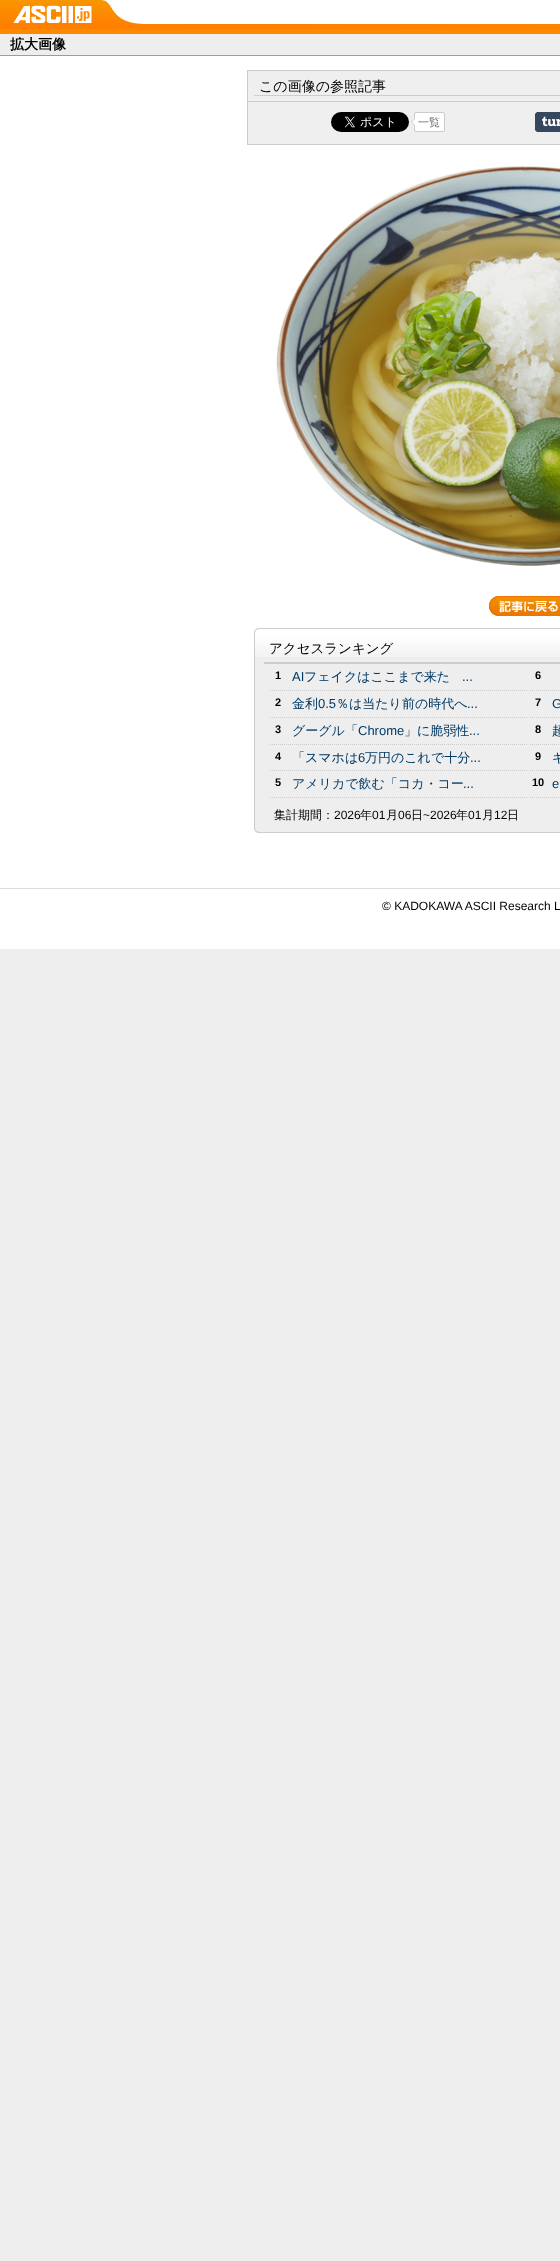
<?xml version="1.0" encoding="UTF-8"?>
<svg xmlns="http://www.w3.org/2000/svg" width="560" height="2261">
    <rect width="100%" height="100%" fill="#EEEEEE"/>
    <rect x="0" y="56" width="560" height="893" fill="#FFFFFF"/>
    <image x="0" y="0" width="560" height="29" href="img_01.png"/>
    <image x="13" y="5" width="79" height="18" href="img_02.png"/>
    <rect x="0" y="29" width="560" height="5" fill="#FC8900"/>
    <rect x="0" y="55" width="560" height="1" fill="#FC8900"/>
    <text x="10" y="49" font-family="WenQuanYi Zen Hei" font-size="14" font-weight="700" fill="#000000">拡大画像</text>
    <rect x="247.5" y="70.5" width="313" height="74" fill="#EFEFEF" stroke="#CCCCCC"/>
    <rect x="254" y="95" width="306" height="1" fill="#CCCCCC"/>
    <text x="259" y="91" font-family="WenQuanYi Zen Hei" font-size="14" font-weight="500" fill="#000000">この画像の参照記事</text>
    <rect x="248" y="101" width="312" height="1" fill="#CCCCCC"/>
    <image x="331" y="112" width="78" height="20" href="img_03.png"/>
    <rect x="414.5" y="112.5" width="30" height="19" rx="1.5" fill="#FFFFFF" stroke="#CCCCCC"/>
    <path d="M 415 118 V 126 L 411 122 Z" fill="#CCCCCC"/>
    <text x="418" y="126" font-family="WenQuanYi Zen Hei" font-size="11" font-weight="500" fill="#666666">一覧</text>
    <path d="M 415 119 V 125 L 412 122 Z" fill="#FFFFFF"/>
    <image x="535" y="112" width="25" height="20" href="img_04.png"/>
    <image x="276" y="166" width="284" height="400" href="img_05.png"/>
    <image x="489" y="596" width="71" height="20" href="img_06.png"/>
    <image x="254" y="657" width="306" height="176" href="img_07.png"/>
    <image x="254" y="628" width="306" height="29" href="img_08.png"/>
    <rect x="264" y="662" width="296" height="2" fill="#CCCCCC"/>
    <text x="269" y="653" font-family="WenQuanYi Zen Hei" font-size="13.5" font-weight="500" fill="#000000">アクセスランキング</text>
    <path d="M 270 690.5 H 528" fill="none" stroke="#CCCCCC" stroke-dasharray="1 1"/>
    <text x="275" y="679" font-family="Liberation Sans" font-size="11" font-weight="700" fill="#000000">1</text>
    <text x="292" y="681" font-family="Liberation Sans" font-size="13" fill="#003964">AI</text>
    <text x="304" y="681" font-family="WenQuanYi Zen Hei" font-size="13" font-weight="500" fill="#003964">フェイクはここまで来た</text>
    <text x="462" y="681" font-family="Liberation Sans" font-size="13" fill="#003964">...</text>
    <path d="M 270 717.5 H 528" fill="none" stroke="#CCCCCC" stroke-dasharray="1 1"/>
    <text x="275" y="706" font-family="Liberation Sans" font-size="11" font-weight="700" fill="#000000">2</text>
    <text x="292" y="708" font-family="WenQuanYi Zen Hei" font-size="13" font-weight="500" fill="#003964">金利</text>
    <text x="318" y="708" font-family="Liberation Sans" font-size="13" fill="#003964">0.5</text>
    <text x="336" y="708" font-family="WenQuanYi Zen Hei" font-size="13" font-weight="500" fill="#003964">％は当たり前の時代へ</text>
    <text x="467" y="708" font-family="Liberation Sans" font-size="13" fill="#003964">...</text>
    <path d="M 270 744.5 H 528" fill="none" stroke="#CCCCCC" stroke-dasharray="1 1"/>
    <text x="275" y="733" font-family="Liberation Sans" font-size="11" font-weight="700" fill="#000000">3</text>
    <text x="292" y="735" font-family="WenQuanYi Zen Hei" font-size="13" font-weight="500" fill="#003964">グーグル「</text>
    <text x="358" y="735" font-family="Liberation Sans" font-size="13" fill="#003964">Chrome</text>
    <text x="404" y="735" font-family="WenQuanYi Zen Hei" font-size="13" font-weight="500" fill="#003964">」に脆弱性</text>
    <text x="469" y="735" font-family="Liberation Sans" font-size="13" fill="#003964">...</text>
    <path d="M 270 770.5 H 528" fill="none" stroke="#CCCCCC" stroke-dasharray="1 1"/>
    <text x="275" y="760" font-family="Liberation Sans" font-size="11" font-weight="700" fill="#000000">4</text>
    <text x="292" y="762" font-family="WenQuanYi Zen Hei" font-size="13" font-weight="500" fill="#003964">「スマホは</text>
    <text x="358" y="762" font-family="Liberation Sans" font-size="13" fill="#003964">6</text>
    <text x="365" y="762" font-family="WenQuanYi Zen Hei" font-size="13" font-weight="500" fill="#003964">万円のこれで十分</text>
    <text x="470" y="762" font-family="Liberation Sans" font-size="13" fill="#003964">...</text>
    <path d="M 270 797.5 H 528" fill="none" stroke="#CCCCCC" stroke-dasharray="1 1"/>
    <text x="275" y="786" font-family="Liberation Sans" font-size="11" font-weight="700" fill="#000000">5</text>
    <text x="292" y="788" font-family="WenQuanYi Zen Hei" font-size="13" font-weight="500" fill="#003964">アメリカで飲む「コカ・コー</text>
    <text x="463" y="788" font-family="Liberation Sans" font-size="13" fill="#003964">...</text>
    <path d="M 530 690.5 H 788 M 530 717.5 H 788 M 530 744.5 H 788" fill="none" stroke="#CCCCCC" stroke-dasharray="1 1"/>
    <text x="535" y="679" font-family="Liberation Sans" font-size="11" font-weight="700" fill="#000000">6</text>
    <text x="535" y="706" font-family="Liberation Sans" font-size="11" font-weight="700" fill="#000000">7</text>
    <text x="552" y="708" font-family="Liberation Sans" font-size="13" fill="#003964">G</text>
    <text x="535" y="733" font-family="Liberation Sans" font-size="11" font-weight="700" fill="#000000">8</text>
    <text x="552" y="735" font-family="WenQuanYi Zen Hei" font-size="13" font-weight="500" fill="#003964">超</text>
    <path d="M 530 770.5 H 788 M 530 797.5 H 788" fill="none" stroke="#CCCCCC" stroke-dasharray="1 1"/>
    <text x="535" y="760" font-family="Liberation Sans" font-size="11" font-weight="700" fill="#000000">9</text>
    <text x="552" y="762" font-family="WenQuanYi Zen Hei" font-size="13" font-weight="500" fill="#003964">ギ</text>
    <text x="532" y="786" font-family="Liberation Sans" font-size="11" font-weight="700" fill="#000000">10</text>
    <text x="552" y="788" font-family="Liberation Sans" font-size="13" fill="#003964">e</text>
    <text x="274" y="819" font-family="WenQuanYi Zen Hei" font-size="12" font-weight="500" fill="#000000">集計期間：</text>
    <text x="334" y="819" font-family="Liberation Sans" font-size="12" fill="#000000">2026</text>
    <text x="360" y="819" font-family="WenQuanYi Zen Hei" font-size="12" font-weight="500" fill="#000000">年</text>
    <text x="372" y="819" font-family="Liberation Sans" font-size="12" fill="#000000">01</text>
    <text x="386" y="819" font-family="WenQuanYi Zen Hei" font-size="12" font-weight="500" fill="#000000">月</text>
    <text x="398" y="819" font-family="Liberation Sans" font-size="12" fill="#000000">06</text>
    <text x="411" y="819" font-family="WenQuanYi Zen Hei" font-size="12" font-weight="500" fill="#000000">日</text>
    <text x="423" y="819" font-family="Liberation Sans" font-size="12" fill="#000000">~2026</text>
    <text x="456" y="819" font-family="WenQuanYi Zen Hei" font-size="12" font-weight="500" fill="#000000">年</text>
    <text x="468" y="819" font-family="Liberation Sans" font-size="12" fill="#000000">01</text>
    <text x="482" y="819" font-family="WenQuanYi Zen Hei" font-size="12" font-weight="500" fill="#000000">月</text>
    <text x="494" y="819" font-family="Liberation Sans" font-size="12" fill="#000000">12</text>
    <text x="507" y="819" font-family="WenQuanYi Zen Hei" font-size="12" font-weight="500" fill="#000000">日</text>
    <rect x="0" y="888" width="560" height="1" fill="#DDDDDD"/>
    <text x="382" y="910" font-family="Liberation Sans" font-size="12" fill="#000000">© KADOKAWA ASCII Research L</text>
</svg>
